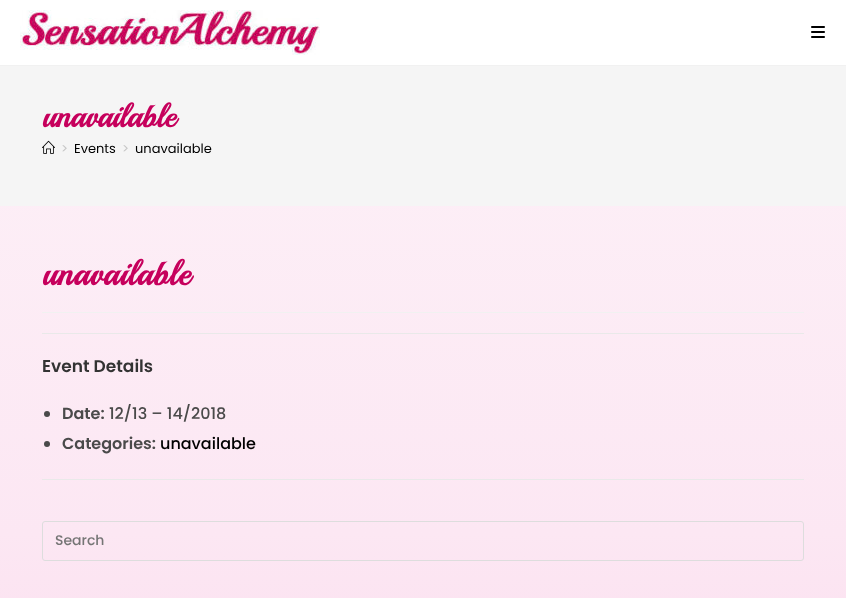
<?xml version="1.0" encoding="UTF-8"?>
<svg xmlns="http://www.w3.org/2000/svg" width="846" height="598">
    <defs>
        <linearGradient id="g1" gradientUnits="userSpaceOnUse" x1="423" y1="0" x2="423" y2="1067"><stop offset="0" stop-color="#FDF2F8"/><stop offset="0.5" stop-color="#FCE7F3"/><stop offset="1" stop-color="#FBCFE8"/></linearGradient>
    </defs>
    <rect width="100%" height="100%" fill="#FFFFFF"/>
    <rect x="0" y="65" width="846" height="1" fill="#F1F1F1"/>
    <image x="20" y="10" width="300" height="45" href="img_01.png"/>
    <image x="811" y="26" width="14" height="12" href="img_02.png"/>
    <rect x="0" y="206" width="846" height="392" fill="url(#g1)"/>
    <rect x="0" y="66" width="846" height="140" fill="#F5F5F5"/>
    <text x="42" y="127" font-family="Playball" font-size="32" font-weight="700" fill="#C6005C">unavailable</text>
    <image x="42" y="140" width="13" height="14" href="img_03.png"/>
    <text x="61" y="153" font-family="Poppins" font-size="13" fill="#C6C6C6">&gt;</text>
    <text x="74" y="153" font-family="Poppins" font-size="13" fill="#000000">Events</text>
    <text x="122" y="153" font-family="Poppins" font-size="13" fill="#C6C6C6">&gt;</text>
    <text x="135" y="153" font-family="Poppins" font-size="13" fill="#000000">unavailable</text>
    <rect x="42" y="312" width="762" height="1" fill="#F1F1F1"/>
    <text x="42" y="285" font-family="Playball" font-size="34" font-weight="700" letter-spacing="0.6" fill="#C6005C">unavailable</text>
    <rect x="42" y="333" width="762" height="1" fill="#E9E9E9"/>
    <text x="42" y="372" font-family="Poppins" font-size="17" font-weight="600" fill="#333333">Event Details</text>
    <circle cx="47" cy="414" r="3" fill="#4A4A4A"/>
    <text x="62" y="419" font-family="Poppins" font-size="16" font-weight="600" fill="#4A4A4A">Date:</text>
    <text x="109" y="419" font-family="Poppins" font-size="16" font-weight="500" fill="#4A4A4A">12/13 – 14/2018</text>
    <circle cx="47" cy="444" r="3" fill="#4A4A4A"/>
    <text x="62" y="449" font-family="Poppins" font-size="16" font-weight="600" fill="#4A4A4A">Categories:</text>
    <text x="160" y="449" font-family="Poppins" font-size="16" font-weight="500" fill="#000000">unavailable</text>
    <rect x="42" y="479" width="762" height="1" fill="#E9E9E9"/>
    <rect x="42.5" y="521.5" width="761" height="39" rx="2.5" fill="none" stroke="#DDDDDD"/>
    <text x="55" y="545" font-family="Poppins" font-size="14" font-weight="500" fill="#757575">Search</text>
</svg>
